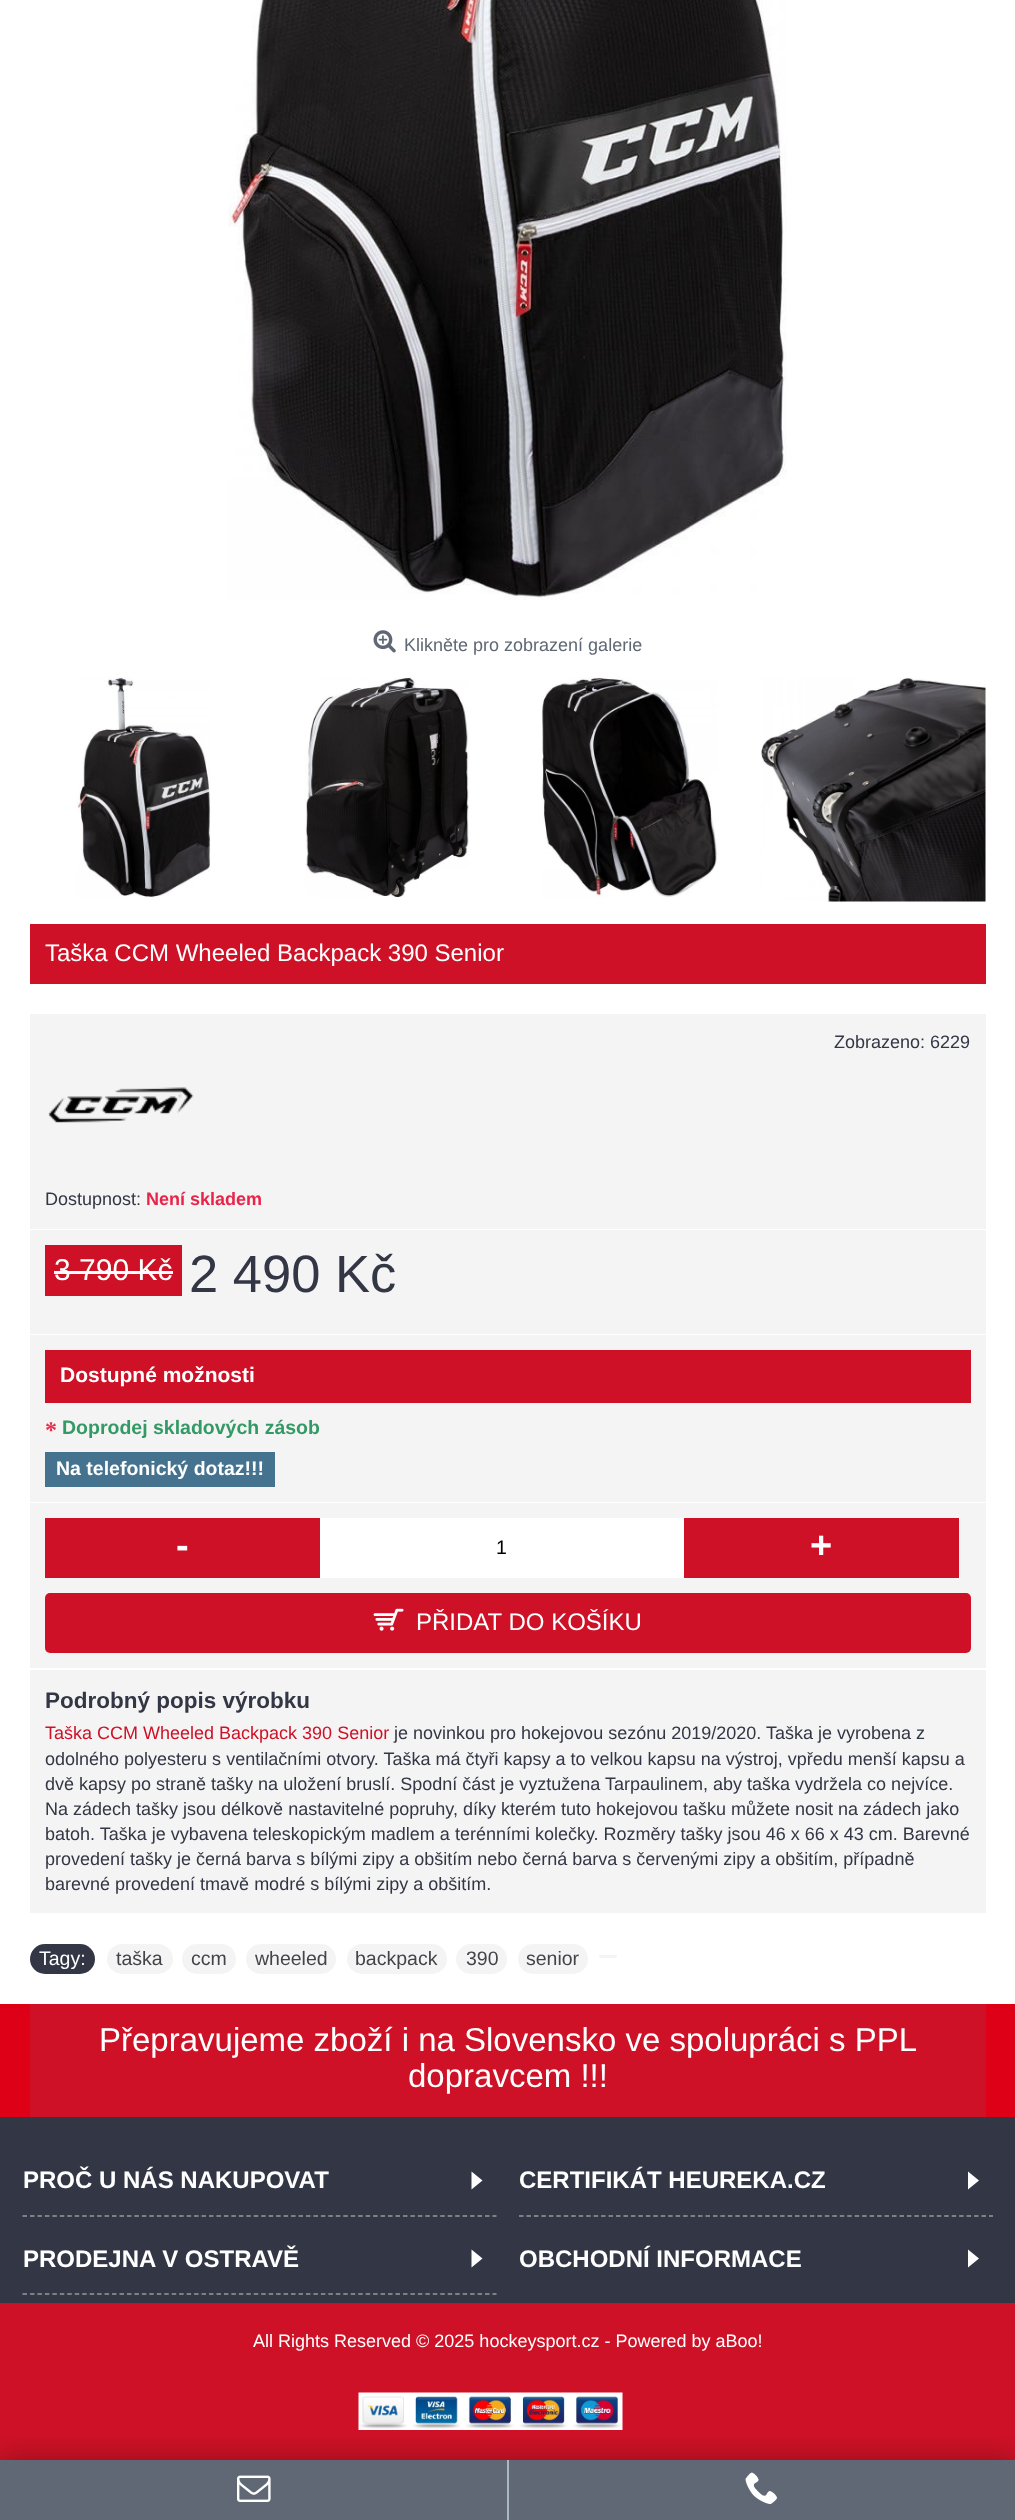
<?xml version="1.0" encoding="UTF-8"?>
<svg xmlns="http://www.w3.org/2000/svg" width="1015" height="2520">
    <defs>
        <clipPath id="clip1"><rect x="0" y="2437" width="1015" height="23"/></clipPath>
        <filter id="blur1" x="-50%" y="-200%" width="200%" height="500%"><feGaussianBlur stdDeviation="15"/></filter>
    </defs>
    <rect width="100%" height="100%" fill="#FFFFFF"/>
    <image x="228" y="0" width="559" height="600" href="img_01.png"/>
    <image x="373" y="630" width="23" height="23" href="img_02.png"/>
    <text x="404" y="651" font-family="Liberation Sans" font-size="18" fill="#5F6874">Klikněte pro zobrazení galerie</text>
    <image x="76" y="677" width="135" height="221" href="img_03.png"/>
    <image x="305" y="677" width="164" height="221" href="img_04.png"/>
    <image x="542" y="677" width="176" height="222" href="img_05.png"/>
    <image x="761" y="677" width="225" height="225" href="img_06.png"/>
    <rect x="30" y="924" width="956" height="60" fill="#CE1126"/>
    <text x="45" y="961" font-family="Liberation Sans" font-size="24" fill="#FFFFFF">Taška CCM Wheeled Backpack 390 Senior</text>
    <rect x="30" y="1014" width="956" height="215" fill="#F4F4F4"/>
    <text x="834" y="1048" font-family="Liberation Sans" font-size="18" fill="#333745">Zobrazeno: 6229</text>
    <image x="48" y="1087" width="146" height="36" href="img_07.png"/>
    <text x="45" y="1205" font-family="Liberation Sans" font-size="18" fill="#333745">Dostupnost:</text>
    <text x="146" y="1205" font-family="Liberation Sans" font-size="18" font-weight="700" fill="#EA2349">Není skladem</text>
    <rect x="30" y="1230" width="956" height="104" fill="#F4F4F4"/>
    <rect x="45" y="1245" width="137" height="51" fill="#CE1126"/>
    <text x="54" y="1280" font-family="Liberation Sans" font-size="30" fill="#FFFFFF">3 790 Kč</text>
    <rect x="54" y="1271" width="119" height="3" fill="#FFFFFF"/>
    <text x="189" y="1292" font-family="Liberation Sans" font-size="52.5" fill="#333745">2 490 Kč</text>
    <rect x="30" y="1335" width="956" height="167" fill="#F4F4F4"/>
    <rect x="45" y="1350" width="926" height="53" fill="#CE1126"/>
    <text x="60" y="1382" font-family="Liberation Sans" font-size="21" font-weight="700" fill="#FFFFFF">Dostupné možnosti</text>
    <text x="45" y="1438" font-family="Liberation Serif" font-size="24" font-weight="700" fill="#EA2E49">*</text>
    <text x="62" y="1434" font-family="Liberation Sans" font-size="19.5" font-weight="700" fill="#339965">Doprodej skladových zásob</text>
    <rect x="45" y="1452" width="230" height="35" fill="#45738F"/>
    <text x="56" y="1475" font-family="Liberation Sans" font-size="19.5" font-weight="700" fill="#FFFFFF">Na telefonický dotaz!!!</text>
    <rect x="30" y="1503" width="956" height="165" fill="#F4F4F4"/>
    <rect x="45" y="1518" width="275" height="60" fill="#CE1126"/>
    <text x="176" y="1558" font-family="Liberation Sans" font-size="38" font-weight="700" fill="#FFFFFF">-</text>
    <rect x="320" y="1518" width="364" height="60" fill="#FFFFFF"/>
    <text x="496" y="1554" font-family="Liberation Sans" font-size="19.5" fill="#000000">1</text>
    <rect x="684" y="1518" width="275" height="60" fill="#CE1126"/>
    <text x="810" y="1558" font-family="Liberation Sans" font-size="38" font-weight="700" fill="#FFFFFF">+</text>
    <rect x="45" y="1593" width="926" height="60" rx="5" fill="#CE1126"/>
    <image x="373" y="1608" width="31" height="23" href="img_08.png"/>
    <text x="416" y="1630" font-family="Liberation Sans" font-size="24" fill="#FFFFFF">PŘIDAT DO KOŠÍKU</text>
    <rect x="30" y="1670" width="956" height="243" fill="#F4F4F4"/>
    <text x="45" y="1708" font-family="Liberation Sans" font-size="22.5" font-weight="700" fill="#333745">Podrobný popis výrobku</text>
    <text x="45" y="1739" font-family="Liberation Sans" font-size="18" fill="#CE1126">Taška CCM Wheeled Backpack 390 Senior</text>
    <text x="394" y="1739" font-family="Liberation Sans" font-size="18" fill="#333745">je novinkou pro hokejovou sezónu 2019/2020. Taška je vyrobena z</text>
    <text font-family="Liberation Sans" font-size="18" fill="#333745">
        <tspan x="45" y="1765">odolného polyesteru s ventilačními otvory. Taška má čtyři kapsy a to velkou kapsu na výstroj, vpředu menší kapsu a</tspan>
        <tspan x="45" y="1790">dvě kapsy po straně tašky na uložení bruslí. Spodní část je vyztužena Tarpaulinem, aby taška vydržela co nejvíce.</tspan>
        <tspan x="45" y="1815">Na zádech tašky jsou délkově nastavitelné popruhy, díky kterém tuto hokejovou tašku můžete nosit na zádech jako</tspan>
        <tspan x="45" y="1840">batoh. Taška je vybavena teleskopickým madlem a terénními kolečky. Rozměry tašky jsou 46 x 66 x 43 cm. Barevné</tspan>
        <tspan x="45" y="1865">provedení tašky je černá barva s bílými zipy a obšitím nebo černá barva s červenými zipy a obšitím, případně</tspan>
        <tspan x="45" y="1890">barevné provedení tmavě modré s bílými zipy a obšitím.</tspan>
    </text>
    <rect x="30" y="1944" width="65" height="30" rx="15" fill="#333745"/>
    <text x="39" y="1965" font-family="Liberation Sans" font-size="19.5" fill="#FFFFFF">Tagy:</text>
    <rect x="107" y="1944" width="66" height="30" rx="15" fill="#F4F4F4"/>
    <text x="116" y="1965" font-family="Liberation Sans" font-size="19.5" fill="#444349">taška</text>
    <rect x="182" y="1944" width="54" height="30" rx="15" fill="#F4F4F4"/>
    <text x="191" y="1965" font-family="Liberation Sans" font-size="19.5" fill="#444349">ccm</text>
    <rect x="246" y="1944" width="90" height="30" rx="15" fill="#F4F4F4"/>
    <text x="255" y="1965" font-family="Liberation Sans" font-size="19.5" fill="#444349">wheeled</text>
    <rect x="347" y="1944" width="100" height="30" rx="15" fill="#F4F4F4"/>
    <text x="355" y="1965" font-family="Liberation Sans" font-size="19.5" fill="#444349">backpack</text>
    <rect x="456" y="1944" width="51" height="30" rx="15" fill="#F4F4F4"/>
    <text x="466" y="1965" font-family="Liberation Sans" font-size="19.5" fill="#444349">390</text>
    <rect x="518" y="1944" width="70" height="30" rx="15" fill="#F4F4F4"/>
    <text x="526" y="1965" font-family="Liberation Sans" font-size="19.5" fill="#444349">senior</text>
    <rect x="599" y="1955" width="18" height="3" rx="1.5" fill="#F4F4F4"/>
    <rect x="0" y="2004" width="1015" height="113" fill="#DD0017"/>
    <rect x="30" y="2004" width="956" height="113" fill="#CE1126"/>
    <text x="99" y="2051" font-family="Liberation Sans" font-size="33" fill="#FFFFFF">Přepravujeme zboží i na Slovensko ve spolupráci s PPL</text>
    <text x="408" y="2087" font-family="Liberation Sans" font-size="33" fill="#FFFFFF">dopravcem !!!</text>
    <rect x="0" y="2117" width="1015" height="186" fill="#333745"/>
    <path d="M 22.5 2216 H 496.5" fill="none" stroke="#999999" stroke-width="1.5" stroke-dasharray="4.5 2.96"/>
    <text x="23" y="2188" font-family="Liberation Sans" font-size="24" font-weight="700" fill="#FFFFFF">PROČ U NÁS NAKUPOVAT</text>
    <path d="M 471.5 2171.5 V 2189.5 L 482.5 2180.5 Z" fill="#FFFFFF"/>
    <path d="M 519 2216 H 993" fill="none" stroke="#999999" stroke-width="1.5" stroke-dasharray="4.5 2.96"/>
    <text x="519" y="2188" font-family="Liberation Sans" font-size="24" font-weight="700" fill="#FFFFFF">CERTIFIKÁT HEUREKA.CZ</text>
    <path d="M 968 2171.5 V 2189.5 L 979 2180.5 Z" fill="#FFFFFF"/>
    <path d="M 22.5 2294 H 496.5" fill="none" stroke="#999999" stroke-width="1.5" stroke-dasharray="4.5 2.96"/>
    <text x="23" y="2267" font-family="Liberation Sans" font-size="24" font-weight="700" fill="#FFFFFF">PRODEJNA V OSTRAVĚ</text>
    <path d="M 471.5 2249.5 V 2267.5 L 482.5 2258.5 Z" fill="#FFFFFF"/>
    <text x="519" y="2267" font-family="Liberation Sans" font-size="24" font-weight="700" fill="#FFFFFF">OBCHODNÍ INFORMACE</text>
    <path d="M 968 2249.5 V 2267.5 L 979 2258.5 Z" fill="#FFFFFF"/>
    <rect x="0" y="2303" width="1015" height="157" fill="#CE1126"/>
    <text x="253" y="2347" font-family="Liberation Sans" font-size="18" fill="#FFFFFF">All Rights Reserved © 2025 hockeysport.cz - Powered by aBoo!</text>
    <image x="358" y="2392" width="265" height="38" href="img_09.png"/>
    <rect x="0" y="2460" width="1015" height="60" fill="#5F6874"/>
    <g clip-path="url(#clip1)">
        <rect x="0" y="2460" width="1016" height="60" fill="#000000" fill-opacity="0.3" filter="url(#blur1)"/>
    </g>
    <rect x="507" y="2460" width="2" height="60" fill="#A9B8C0"/>
    <image x="237" y="2475" width="34" height="27" href="img_10.png"/>
    <image x="745" y="2472" width="32" height="33" href="img_11.png"/>
</svg>
